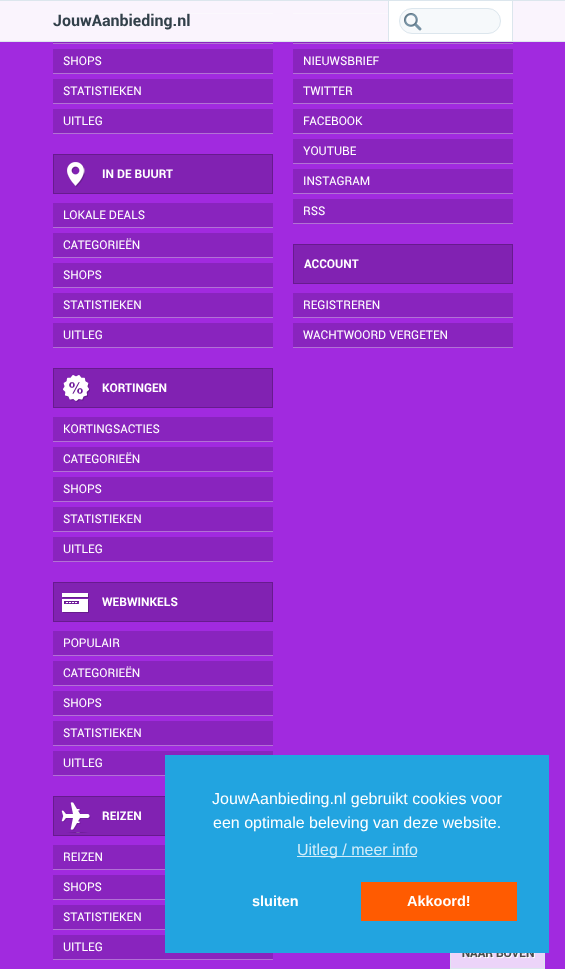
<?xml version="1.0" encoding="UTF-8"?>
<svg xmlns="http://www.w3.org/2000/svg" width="565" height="969">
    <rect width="100%" height="100%" fill="#A12ADF"/>
    <rect x="0" y="0" width="565" height="1" fill="#DCE6ED"/>
    <rect x="0" y="41" width="565" height="1" fill="#DCE6ED"/>
    <rect x="0" y="1" width="565" height="40" fill="#FAF4FD"/>
    <rect x="53" y="13" width="220" height="1" fill="#FBF8FD"/>
    <text x="53" y="26" font-family="Roboto" font-size="16" font-weight="700" fill="#32404A">JouwAanbieding.nl</text>
    <rect x="512" y="1" width="1" height="40" fill="#DCE6ED"/>
    <rect x="389" y="1" width="123" height="40" fill="#FFFFFF"/>
    <rect x="388" y="1" width="1" height="40" fill="#DCE6ED"/>
    <rect x="399.5" y="8.5" width="101" height="25" rx="12.5" fill="#F6F9FB" stroke="#DCE6ED"/>
    <image x="404" y="13" width="18" height="18" href="img_01.png"/>
    <rect x="53" y="42" width="220" height="1" fill="#8924BE"/>
    <rect x="53" y="43" width="220" height="1" fill="#B271D5"/>
    <rect x="53" y="49" width="220" height="24" fill="#8924BE"/>
    <rect x="53" y="73" width="220" height="1" fill="#B271D5"/>
    <text x="63" y="65" font-family="Roboto" font-size="12" fill="#FFFFFF">SHOPS</text>
    <rect x="53" y="79" width="220" height="24" fill="#8924BE"/>
    <rect x="53" y="103" width="220" height="1" fill="#B271D5"/>
    <text x="63" y="95" font-family="Roboto" font-size="12" fill="#FFFFFF">STATISTIEKEN</text>
    <rect x="53" y="109" width="220" height="24" fill="#8924BE"/>
    <rect x="53" y="133" width="220" height="1" fill="#B271D5"/>
    <text x="63" y="125" font-family="Roboto" font-size="12" fill="#FFFFFF">UITLEG</text>
    <rect x="53.5" y="154.5" width="219" height="39" fill="#8122B2" stroke="#671B8E"/>
    <image x="67" y="162" width="18" height="25" href="img_02.png"/>
    <text x="102" y="178" font-family="Roboto" font-size="12" font-weight="700" fill="#FFFFFF">IN DE BUURT</text>
    <rect x="53" y="203" width="220" height="24" fill="#8924BE"/>
    <rect x="53" y="227" width="220" height="1" fill="#B271D5"/>
    <text x="63" y="219" font-family="Roboto" font-size="12" fill="#FFFFFF">LOKALE DEALS</text>
    <rect x="53" y="233" width="220" height="24" fill="#8924BE"/>
    <rect x="53" y="257" width="220" height="1" fill="#B271D5"/>
    <text x="63" y="249" font-family="Roboto" font-size="12" fill="#FFFFFF">CATEGORIEËN</text>
    <rect x="53" y="263" width="220" height="24" fill="#8924BE"/>
    <rect x="53" y="287" width="220" height="1" fill="#B271D5"/>
    <text x="63" y="279" font-family="Roboto" font-size="12" fill="#FFFFFF">SHOPS</text>
    <rect x="53" y="293" width="220" height="24" fill="#8924BE"/>
    <rect x="53" y="317" width="220" height="1" fill="#B271D5"/>
    <text x="63" y="309" font-family="Roboto" font-size="12" fill="#FFFFFF">STATISTIEKEN</text>
    <rect x="53" y="323" width="220" height="24" fill="#8924BE"/>
    <rect x="53" y="347" width="220" height="1" fill="#B271D5"/>
    <text x="63" y="339" font-family="Roboto" font-size="12" fill="#FFFFFF">UITLEG</text>
    <rect x="53.5" y="368.5" width="219" height="39" fill="#8122B2" stroke="#671B8E"/>
    <image x="63" y="375" width="27" height="27" href="img_03.png"/>
    <text x="102" y="392" font-family="Roboto" font-size="12" font-weight="700" fill="#FFFFFF">KORTINGEN</text>
    <rect x="53" y="417" width="220" height="24" fill="#8924BE"/>
    <rect x="53" y="441" width="220" height="1" fill="#B271D5"/>
    <text x="63" y="433" font-family="Roboto" font-size="12" fill="#FFFFFF">KORTINGSACTIES</text>
    <rect x="53" y="447" width="220" height="24" fill="#8924BE"/>
    <rect x="53" y="471" width="220" height="1" fill="#B271D5"/>
    <text x="63" y="463" font-family="Roboto" font-size="12" fill="#FFFFFF">CATEGORIEËN</text>
    <rect x="53" y="477" width="220" height="24" fill="#8924BE"/>
    <rect x="53" y="501" width="220" height="1" fill="#B271D5"/>
    <text x="63" y="493" font-family="Roboto" font-size="12" fill="#FFFFFF">SHOPS</text>
    <rect x="53" y="507" width="220" height="24" fill="#8924BE"/>
    <rect x="53" y="531" width="220" height="1" fill="#B271D5"/>
    <text x="63" y="523" font-family="Roboto" font-size="12" fill="#FFFFFF">STATISTIEKEN</text>
    <rect x="53" y="537" width="220" height="24" fill="#8924BE"/>
    <rect x="53" y="561" width="220" height="1" fill="#B271D5"/>
    <text x="63" y="553" font-family="Roboto" font-size="12" fill="#FFFFFF">UITLEG</text>
    <rect x="53.5" y="582.5" width="219" height="39" fill="#8122B2" stroke="#671B8E"/>
    <image x="62" y="593" width="27" height="20" href="img_04.png"/>
    <text x="102" y="606" font-family="Roboto" font-size="12" font-weight="700" fill="#FFFFFF">WEBWINKELS</text>
    <rect x="53" y="631" width="220" height="24" fill="#8924BE"/>
    <rect x="53" y="655" width="220" height="1" fill="#B271D5"/>
    <text x="63" y="647" font-family="Roboto" font-size="12" fill="#FFFFFF">POPULAIR</text>
    <rect x="53" y="661" width="220" height="24" fill="#8924BE"/>
    <rect x="53" y="685" width="220" height="1" fill="#B271D5"/>
    <text x="63" y="677" font-family="Roboto" font-size="12" fill="#FFFFFF">CATEGORIEËN</text>
    <rect x="53" y="691" width="220" height="24" fill="#8924BE"/>
    <rect x="53" y="715" width="220" height="1" fill="#B271D5"/>
    <text x="63" y="707" font-family="Roboto" font-size="12" fill="#FFFFFF">SHOPS</text>
    <rect x="53" y="721" width="220" height="24" fill="#8924BE"/>
    <rect x="53" y="745" width="220" height="1" fill="#B271D5"/>
    <text x="63" y="737" font-family="Roboto" font-size="12" fill="#FFFFFF">STATISTIEKEN</text>
    <rect x="53" y="751" width="220" height="24" fill="#8924BE"/>
    <rect x="53" y="775" width="112" height="1" fill="#B271D5"/>
    <text x="63" y="767" font-family="Roboto" font-size="12" fill="#FFFFFF">UITLEG</text>
    <rect x="54" y="797" width="111" height="38" fill="#8122B2"/>
    <rect x="53.5" y="796.5" width="219" height="39" fill="none" stroke="#671B8E"/>
    <image x="61" y="802" width="30" height="31" href="img_05.png"/>
    <text x="102" y="820" font-family="Roboto" font-size="12" font-weight="700" fill="#FFFFFF">REIZEN</text>
    <rect x="53" y="845" width="112" height="24" fill="#8924BE"/>
    <rect x="53" y="869" width="112" height="1" fill="#B271D5"/>
    <text x="63" y="861" font-family="Roboto" font-size="12" fill="#FFFFFF">REIZEN</text>
    <rect x="53" y="875" width="112" height="24" fill="#8924BE"/>
    <rect x="53" y="899" width="112" height="1" fill="#B271D5"/>
    <text x="63" y="891" font-family="Roboto" font-size="12" fill="#FFFFFF">SHOPS</text>
    <rect x="53" y="905" width="112" height="24" fill="#8924BE"/>
    <rect x="53" y="929" width="112" height="1" fill="#B271D5"/>
    <text x="63" y="921" font-family="Roboto" font-size="12" fill="#FFFFFF">STATISTIEKEN</text>
    <rect x="53" y="935" width="220" height="24" fill="#8924BE"/>
    <rect x="53" y="959" width="220" height="1" fill="#B271D5"/>
    <text x="63" y="951" font-family="Roboto" font-size="12" fill="#FFFFFF">UITLEG</text>
    <rect x="293" y="13" width="95" height="1" fill="#FBF8FD"/>
    <rect x="293" y="42" width="220" height="1" fill="#8924BE"/>
    <rect x="293" y="43" width="220" height="1" fill="#B271D5"/>
    <rect x="293" y="49" width="220" height="24" fill="#8924BE"/>
    <rect x="293" y="73" width="220" height="1" fill="#B271D5"/>
    <text x="303" y="65" font-family="Roboto" font-size="12" fill="#FFFFFF">NIEUWSBRIEF</text>
    <rect x="293" y="79" width="220" height="24" fill="#8924BE"/>
    <rect x="293" y="103" width="220" height="1" fill="#B271D5"/>
    <text x="303" y="95" font-family="Roboto" font-size="12" fill="#FFFFFF">TWITTER</text>
    <rect x="293" y="109" width="220" height="24" fill="#8924BE"/>
    <rect x="293" y="133" width="220" height="1" fill="#B271D5"/>
    <text x="303" y="125" font-family="Roboto" font-size="12" fill="#FFFFFF">FACEBOOK</text>
    <rect x="293" y="139" width="220" height="24" fill="#8924BE"/>
    <rect x="293" y="163" width="220" height="1" fill="#B271D5"/>
    <text x="303" y="155" font-family="Roboto" font-size="12" fill="#FFFFFF">YOUTUBE</text>
    <rect x="293" y="169" width="220" height="24" fill="#8924BE"/>
    <rect x="293" y="193" width="220" height="1" fill="#B271D5"/>
    <text x="303" y="185" font-family="Roboto" font-size="12" fill="#FFFFFF">INSTAGRAM</text>
    <rect x="293" y="199" width="220" height="24" fill="#8924BE"/>
    <rect x="293" y="223" width="220" height="1" fill="#B271D5"/>
    <text x="303" y="215" font-family="Roboto" font-size="12" fill="#FFFFFF">RSS</text>
    <rect x="293.5" y="244.5" width="219" height="39" fill="#8122B2" stroke="#671B8E"/>
    <text x="304" y="268" font-family="Roboto" font-size="12" font-weight="700" fill="#FFFFFF">ACCOUNT</text>
    <rect x="293" y="293" width="220" height="24" fill="#8924BE"/>
    <rect x="293" y="317" width="220" height="1" fill="#B271D5"/>
    <text x="303" y="309" font-family="Roboto" font-size="12" fill="#FFFFFF">REGISTREREN</text>
    <rect x="293" y="323" width="220" height="24" fill="#8924BE"/>
    <rect x="293" y="347" width="220" height="1" fill="#B271D5"/>
    <text x="303" y="339" font-family="Roboto" font-size="12" fill="#FFFFFF">WACHTWOORD VERGETEN</text>
    <rect x="165" y="755" width="384" height="198" fill="#22A4E0"/>
    <text x="212" y="804" font-family="Liberation Sans" font-size="16" fill="#FFFFFF">JouwAanbieding.nl gebruikt cookies voor</text>
    <text x="213" y="828" font-family="Liberation Sans" font-size="16" fill="#FFFFFF">een optimale beleving van deze website.</text>
    <rect x="297" y="856" width="120" height="1" fill="#D3EDF9"/>
    <text x="297" y="855" font-family="Liberation Sans" font-size="16" fill="#D3EDF9">Uitleg / meer info</text>
    <text x="252" y="906" font-family="Liberation Sans" font-size="14.5" font-weight="700" fill="#FFFFFF">sluiten</text>
    <rect x="361" y="882" width="156" height="39" fill="#FF5B01"/>
    <text x="407" y="906" font-family="Liberation Sans" font-size="14.5" font-weight="700" fill="#FFFFFF">Akkoord!</text>
    <image x="450" y="953" width="95" height="16" href="img_06.png"/>
</svg>
